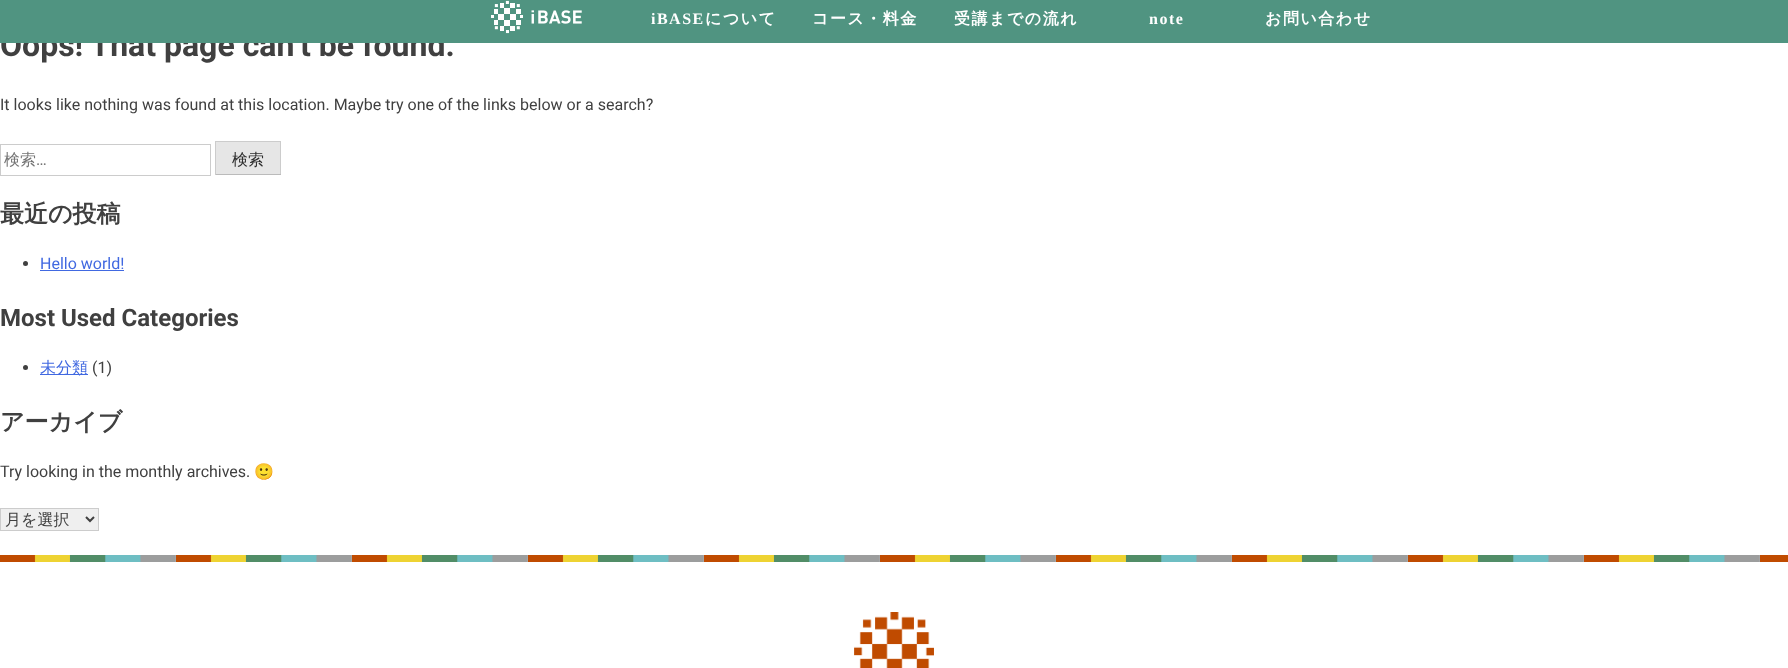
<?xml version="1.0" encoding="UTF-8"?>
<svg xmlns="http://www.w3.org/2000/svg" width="1788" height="668">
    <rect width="100%" height="100%" fill="#FFFFFF"/>
    <text x="0" y="56" font-family="Roboto" font-size="32" font-weight="700" fill="#404040">Oops! That page can’t be found.</text>
    <rect x="0" y="0" width="1788" height="43" fill="#509481"/>
    <image x="491" y="0" width="91" height="34" href="img_01.png"/>
    <text x="651" y="24" font-family="Liberation Serif" font-size="16" font-weight="700" letter-spacing="1.5" fill="#FFFFFF">iBASE</text>
    <text x="705" y="24" font-family="WenQuanYi Zen Hei" font-size="16" font-weight="700" letter-spacing="1.5" fill="#FFFFFF">について</text>
    <text x="812" y="24" font-family="WenQuanYi Zen Hei" font-size="16" font-weight="700" letter-spacing="1.5" fill="#FFFFFF">コース・料金</text>
    <text x="954" y="24" font-family="WenQuanYi Zen Hei" font-size="16" font-weight="700" letter-spacing="1.5" fill="#FFFFFF">受講までの流れ</text>
    <text x="1149" y="24" font-family="Liberation Serif" font-size="16" font-weight="700" letter-spacing="1.5" fill="#FFFFFF">note</text>
    <text x="1265" y="24" font-family="WenQuanYi Zen Hei" font-size="16" font-weight="700" letter-spacing="1.5" fill="#FFFFFF">お問い合わせ</text>
    <text x="0" y="110" font-family="Roboto" font-size="16" fill="#404040">It looks like nothing was found at this location. Maybe try one of the links below or a search?</text>
    <rect x="0.5" y="144.5" width="210" height="31" fill="none" stroke="#CCCCCC"/>
    <text x="4" y="165" font-family="WenQuanYi Zen Hei" font-size="16" font-weight="500" fill="#757575">検索</text>
    <text x="36" y="165" font-family="Roboto" font-size="16" fill="#757575">…</text>
    <rect x="216" y="142" width="64" height="32" fill="#E6E6E6"/>
    <rect x="215" y="141" width="66" height="1" fill="#CCCCCC"/>
    <rect x="280" y="141" width="1" height="34" fill="#CCCCCC"/>
    <rect x="215" y="174" width="66" height="1" fill="#BBBBBB"/>
    <rect x="215" y="141" width="1" height="34" fill="#CCCCCC"/>
    <text x="232" y="165" font-family="WenQuanYi Zen Hei" font-size="16" font-weight="500" fill="#2E2E2E">検索</text>
    <text x="0" y="222" font-family="WenQuanYi Zen Hei" font-size="24" font-weight="700" fill="#404040">最近の投稿</text>
    <circle cx="25.5" cy="263.5" r="2.5" fill="#404040"/>
    <text x="40" y="269" font-family="Roboto" font-size="16" fill="#4169E1">Hello world!</text>
    <rect x="40" y="270" width="84" height="1" fill="#4169E1"/>
    <text x="0" y="326" font-family="Roboto" font-size="24" font-weight="700" fill="#404040">Most Used Categories</text>
    <circle cx="25.5" cy="367.5" r="2.5" fill="#404040"/>
    <rect x="40" y="374" width="48" height="1" fill="#4169E1"/>
    <text x="40" y="373" font-family="WenQuanYi Zen Hei" font-size="16" font-weight="500" fill="#4169E1">未分類</text>
    <text x="92" y="373" font-family="Roboto" font-size="16" fill="#404040">(1)</text>
    <text x="0" y="430" font-family="WenQuanYi Zen Hei" font-size="24" font-weight="700" fill="#404040">アーカイブ</text>
    <text x="0" y="477" font-family="Roboto" font-size="16" fill="#404040">Try looking in the monthly archives.</text>
    <text x="254" y="477" font-family="Noto Color Emoji" font-size="16" fill="#404040">🙂</text>
    <rect x="0.5" y="508.5" width="98" height="22" fill="#EFEFEF" stroke="#CCCCCC"/>
    <path d="M 86 517 L 90 521 L 94 517" fill="none" stroke="#404040" stroke-width="2"/>
    <text x="5" y="525" font-family="WenQuanYi Zen Hei" font-size="16" font-weight="500" fill="#404040">月を選択</text>
    <image x="0" y="555" width="1788" height="7" href="img_02.png"/>
    <image x="854" y="612" width="80" height="56" href="img_03.png"/>
</svg>
